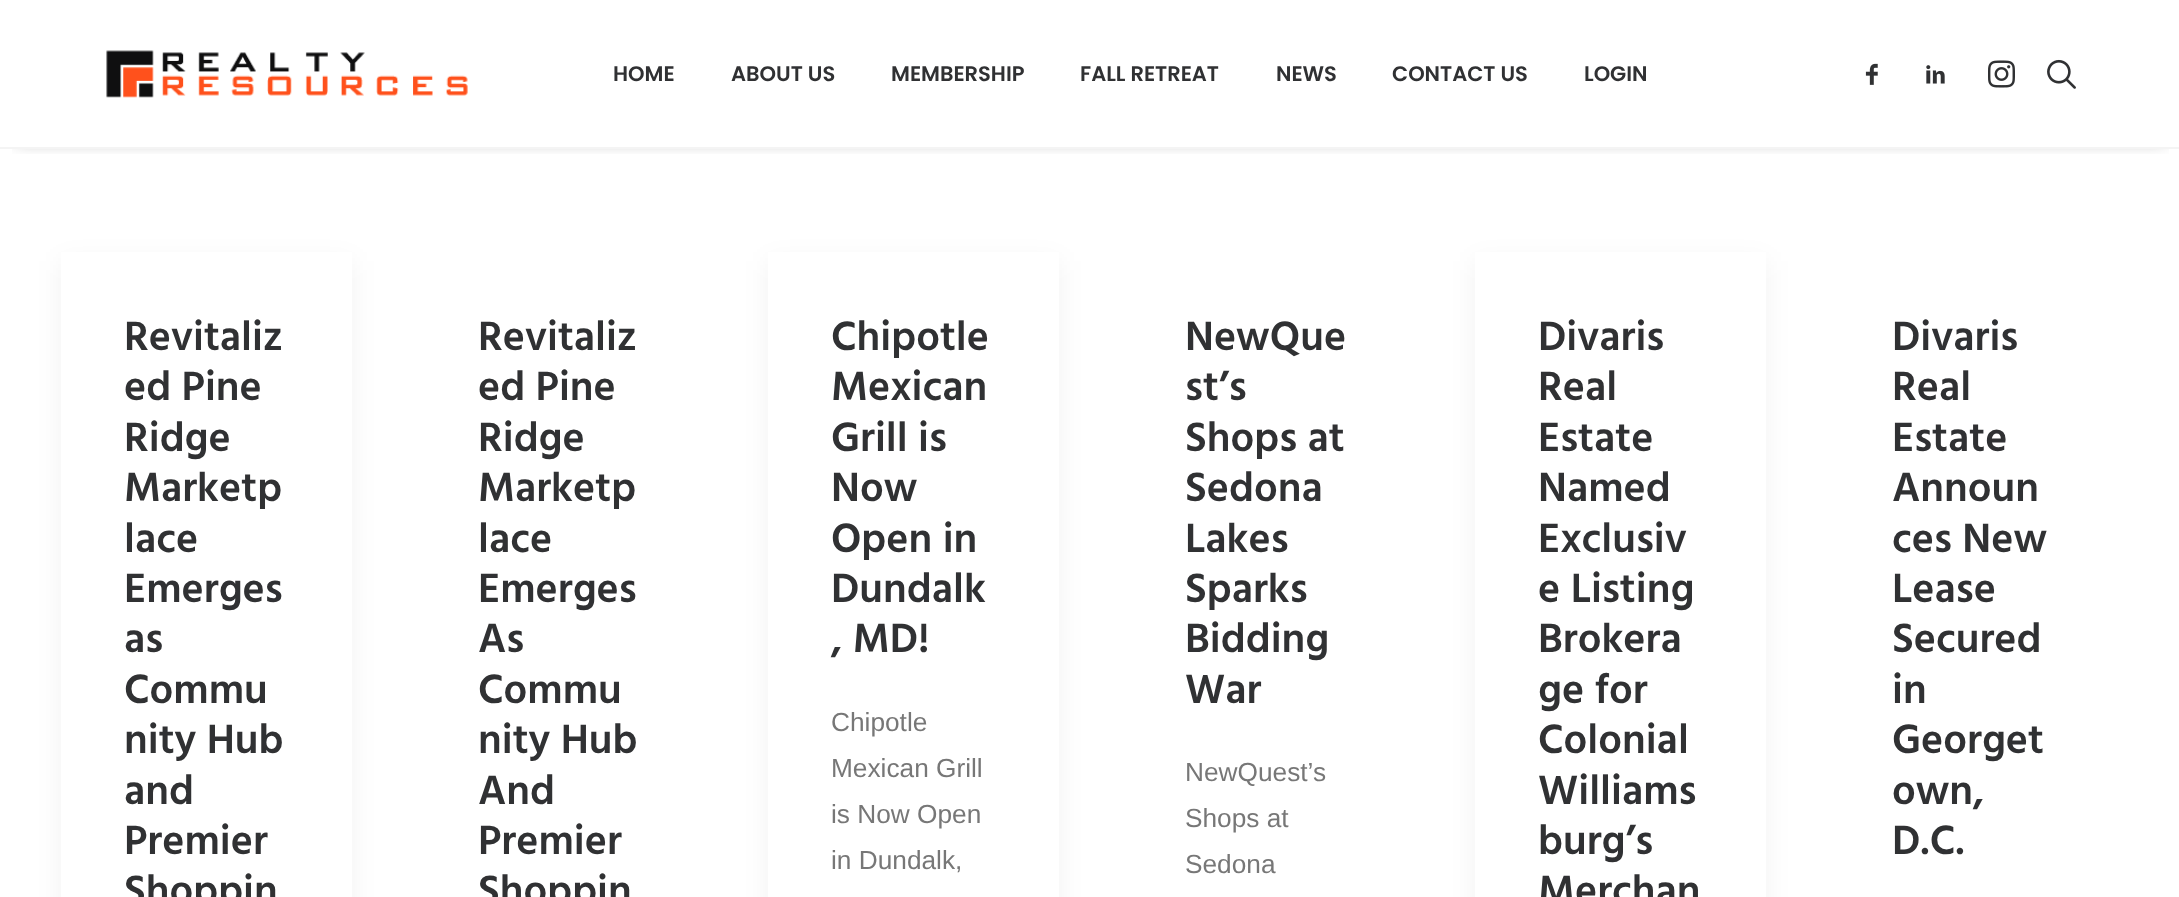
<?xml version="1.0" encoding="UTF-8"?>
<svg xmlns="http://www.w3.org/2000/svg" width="2179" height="897">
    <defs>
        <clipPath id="clip1"><rect x="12" y="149" width="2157" height="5"/></clipPath>
        <filter id="blur1" x="-50%" y="-200%" width="200%" height="500%"><feGaussianBlur stdDeviation="9"/></filter>
        <filter id="blur2" x="-50%" y="-200%" width="200%" height="500%"><feGaussianBlur stdDeviation="13"/></filter>
    </defs>
    <rect width="100%" height="100%" fill="#FFFFFF"/>
    <g clip-path="url(#clip1)">
        <rect x="16" y="25" width="2149" height="113" fill="#000000" fill-opacity="0.6" filter="url(#blur1)"/>
    </g>
    <rect x="0" y="147" width="2179" height="2" fill="#EAEAEA" fill-opacity="0.5"/>
    <image x="106" y="50" width="362" height="48" href="img_01.png"/>
    <text x="613" y="81" font-family="Poppins" font-size="21" font-weight="600" fill="#303133">HOME</text>
    <text x="731" y="81" font-family="Poppins" font-size="21" font-weight="600" fill="#303133">ABOUT US</text>
    <text x="891" y="81" font-family="Poppins" font-size="21" font-weight="600" fill="#303133">MEMBERSHIP</text>
    <text x="1080" y="81" font-family="Poppins" font-size="21" font-weight="600" fill="#303133">FALL RETREAT</text>
    <text x="1276" y="81" font-family="Poppins" font-size="21" font-weight="600" fill="#303133">NEWS</text>
    <text x="1392" y="81" font-family="Poppins" font-size="21" font-weight="600" fill="#303133">CONTACT US</text>
    <text x="1584" y="81" font-family="Poppins" font-size="21" font-weight="600" fill="#303133">LOGIN</text>
    <image x="1865" y="63" width="13" height="22" href="img_02.png"/>
    <image x="1926" y="65" width="19" height="19" href="img_03.png"/>
    <image x="1988" y="60" width="27" height="28" href="img_04.png"/>
    <image x="2047" y="59" width="29" height="30" href="img_05.png"/>
    <rect x="61" y="261" width="291" height="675" fill="#000000" fill-opacity="0.05" filter="url(#blur2)"/>
    <rect x="61" y="252" width="291" height="645" fill="#FFFFFF"/>
    <text font-family="Hind" font-size="42" font-weight="600" fill="#303133">
        <tspan x="124" y="350">Revitaliz</tspan>
        <tspan x="124" y="400">ed Pine</tspan>
        <tspan x="124" y="451">Ridge</tspan>
        <tspan x="124" y="501">Marketp</tspan>
        <tspan x="124" y="552">lace</tspan>
        <tspan x="124" y="602">Emerges</tspan>
        <tspan x="124" y="652">as</tspan>
        <tspan x="124" y="703">Commu</tspan>
        <tspan x="124" y="753">nity Hub</tspan>
        <tspan x="124" y="804">and</tspan>
        <tspan x="124" y="854">Premier</tspan>
        <tspan x="124" y="904">Shoppin</tspan>
    </text>
    <text font-family="Hind" font-size="42" font-weight="600" fill="#303133">
        <tspan x="478" y="350">Revitaliz</tspan>
        <tspan x="478" y="400">ed Pine</tspan>
        <tspan x="478" y="451">Ridge</tspan>
        <tspan x="478" y="501">Marketp</tspan>
        <tspan x="478" y="552">lace</tspan>
        <tspan x="478" y="602">Emerges</tspan>
        <tspan x="478" y="652">As</tspan>
        <tspan x="478" y="703">Commu</tspan>
        <tspan x="478" y="753">nity Hub</tspan>
        <tspan x="478" y="804">And</tspan>
        <tspan x="478" y="854">Premier</tspan>
        <tspan x="478" y="904">Shoppin</tspan>
    </text>
    <rect x="768" y="261" width="291" height="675" fill="#000000" fill-opacity="0.05" filter="url(#blur2)"/>
    <rect x="768" y="252" width="291" height="645" fill="#FFFFFF"/>
    <text font-family="Hind" font-size="42" font-weight="600" fill="#303133">
        <tspan x="831" y="350">Chipotle</tspan>
        <tspan x="831" y="400">Mexican</tspan>
        <tspan x="831" y="451">Grill is</tspan>
        <tspan x="831" y="501">Now</tspan>
        <tspan x="831" y="552">Open in</tspan>
        <tspan x="831" y="602">Dundalk</tspan>
        <tspan x="831" y="652">, MD!</tspan>
    </text>
    <text font-family="Liberation Sans" font-size="26.25" fill="#777777">
        <tspan x="831" y="731">Chipotle</tspan>
        <tspan x="831" y="777">Mexican Grill</tspan>
        <tspan x="831" y="823">is Now Open</tspan>
        <tspan x="831" y="869">in Dundalk,</tspan>
    </text>
    <text font-family="Hind" font-size="42" font-weight="600" fill="#303133">
        <tspan x="1185" y="350">NewQue</tspan>
        <tspan x="1185" y="400">st’s</tspan>
        <tspan x="1185" y="451">Shops at</tspan>
        <tspan x="1185" y="501">Sedona</tspan>
        <tspan x="1185" y="552">Lakes</tspan>
        <tspan x="1185" y="602">Sparks</tspan>
        <tspan x="1185" y="652">Bidding</tspan>
        <tspan x="1185" y="703">War</tspan>
    </text>
    <text font-family="Liberation Sans" font-size="26.25" fill="#777777">
        <tspan x="1185" y="781">NewQuest’s</tspan>
        <tspan x="1185" y="827">Shops at</tspan>
        <tspan x="1185" y="873">Sedona</tspan>
    </text>
    <rect x="1475" y="261" width="291" height="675" fill="#000000" fill-opacity="0.05" filter="url(#blur2)"/>
    <rect x="1475" y="252" width="291" height="645" fill="#FFFFFF"/>
    <text font-family="Hind" font-size="42" font-weight="600" fill="#303133">
        <tspan x="1538" y="350">Divaris</tspan>
        <tspan x="1538" y="400">Real</tspan>
        <tspan x="1538" y="451">Estate</tspan>
        <tspan x="1538" y="501">Named</tspan>
        <tspan x="1538" y="552">Exclusiv</tspan>
        <tspan x="1538" y="602">e Listing</tspan>
        <tspan x="1538" y="652">Brokera</tspan>
        <tspan x="1538" y="703">ge for</tspan>
        <tspan x="1538" y="753">Colonial</tspan>
        <tspan x="1538" y="804">Williams</tspan>
        <tspan x="1538" y="854">burg’s</tspan>
        <tspan x="1538" y="904">Merchan</tspan>
    </text>
    <text font-family="Hind" font-size="42" font-weight="600" fill="#303133">
        <tspan x="1892" y="350">Divaris</tspan>
        <tspan x="1892" y="400">Real</tspan>
        <tspan x="1892" y="451">Estate</tspan>
        <tspan x="1892" y="501">Announ</tspan>
        <tspan x="1892" y="552">ces New</tspan>
        <tspan x="1892" y="602">Lease</tspan>
        <tspan x="1892" y="652">Secured</tspan>
        <tspan x="1892" y="703">in</tspan>
        <tspan x="1892" y="753">Georget</tspan>
        <tspan x="1892" y="804">own,</tspan>
        <tspan x="1892" y="854">D.C.</tspan>
    </text>
</svg>
